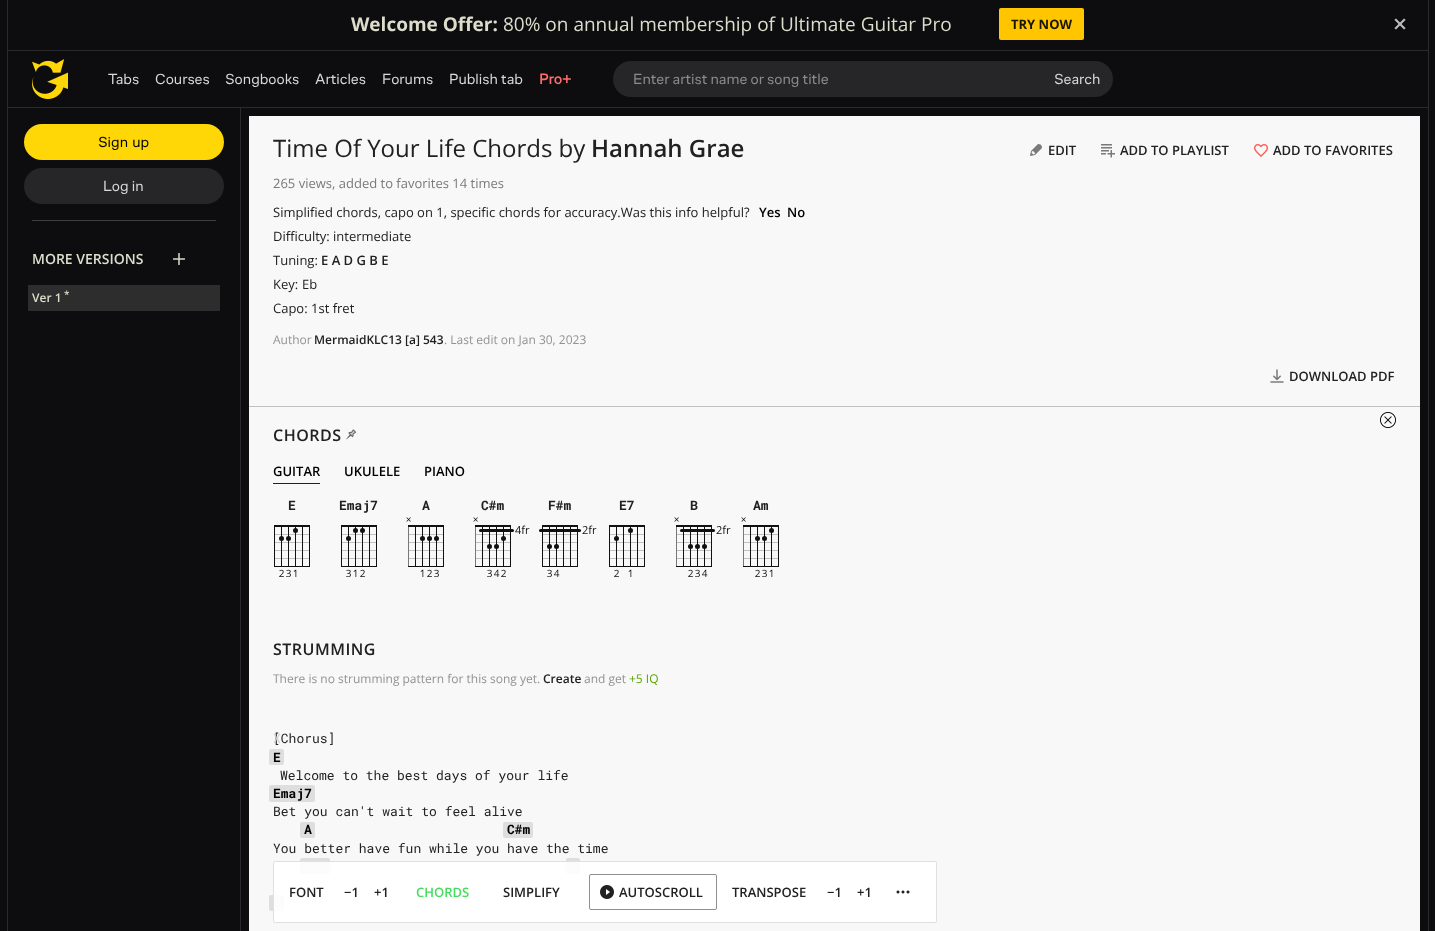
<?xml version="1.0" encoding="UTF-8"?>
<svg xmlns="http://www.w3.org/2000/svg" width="1435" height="931">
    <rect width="100%" height="100%" fill="#0D0D10"/>
    <rect x="7" y="0" width="1" height="931" fill="#2A2A2D"/>
    <rect x="8" y="50" width="1420" height="1" fill="#2A2A2D"/>
    <text x="351" y="31" font-family="Open Sans" font-size="19" font-weight="700" fill="#DDDDCC">Welcome Offer:</text>
    <text x="503" y="31" font-family="Open Sans" font-size="19" fill="#DDDDCC">80% on annual membership of Ultimate Guitar Pro</text>
    <rect x="999" y="8" width="85" height="32" rx="2" fill="#FFC600"/>
    <text x="1011" y="29" font-family="Open Sans" font-size="13" font-weight="700" fill="#1A1400">TRY NOW</text>
    <image x="1394" y="18" width="12" height="12" href="img_01.png"/>
    <rect x="1428" y="0" width="1" height="931" fill="#2A2A2D"/>
    <rect x="8" y="107" width="1420" height="1" fill="#2A2A2D"/>
    <image x="32" y="59" width="36" height="40" href="img_02.png"/>
    <text x="108" y="84" font-family="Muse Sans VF" font-size="15" fill="#D9D9DC">Tabs</text>
    <text x="155" y="84" font-family="Muse Sans VF" font-size="15" fill="#D9D9DC">Courses</text>
    <text x="225" y="84" font-family="Muse Sans VF" font-size="15" fill="#D9D9DC">Songbooks</text>
    <text x="315" y="84" font-family="Muse Sans VF" font-size="15" fill="#D9D9DC">Articles</text>
    <text x="382" y="84" font-family="Muse Sans VF" font-size="15" fill="#D9D9DC">Forums</text>
    <text x="449" y="84" font-family="Muse Sans VF" font-size="15" fill="#D9D9DC">Publish tab</text>
    <text x="539" y="84" font-family="Muse Sans VF" font-size="15" font-weight="700" fill="#FF6E68">Pro+</text>
    <rect x="613" y="61" width="500" height="36" rx="18" fill="#262629"/>
    <text x="633" y="84" font-family="Muse Sans VF" font-size="15" fill="#8C8C8F">Enter artist name or song title</text>
    <text x="1054" y="84" font-family="Muse Sans VF" font-size="15" fill="#D9D9DC">Search</text>
    <rect x="24" y="124" width="200" height="36" rx="18" fill="#FFD706"/>
    <text x="98" y="147" word-spacing="1" font-family="Muse Sans VF" font-size="15" fill="#000000">Sign up</text>
    <rect x="24" y="168" width="200" height="36" rx="18" fill="#262629"/>
    <text x="103" y="191" font-family="Muse Sans VF" font-size="15" fill="#D9D9DC">Log in</text>
    <rect x="32" y="220" width="184" height="1" fill="#3E3E3E"/>
    <text x="32" y="264" font-family="Open Sans" font-size="14" font-weight="600" fill="#DDDDCC">MORE VERSIONS</text>
    <image x="173" y="253" width="12" height="12" href="img_03.png"/>
    <rect x="28" y="285" width="192" height="26" fill="#2D2D2D"/>
    <text x="64" y="298" font-family="Open Sans" font-size="10" font-weight="600" fill="#DDDDCC">*</text>
    <text x="32" y="302" font-family="Open Sans" font-size="12" font-weight="600" fill="#DDDDCC">Ver 1</text>
    <rect x="240" y="108" width="1" height="823" fill="#2A2A2D"/>
    <rect x="249" y="116" width="1171" height="815" fill="#F8F8F8"/>
    <rect x="249" y="406" width="1171" height="1" fill="#C0C0C0"/>
    <text x="273" y="157" font-family="Open Sans" font-size="24" fill="#212121">Time Of Your Life Chords by</text>
    <text x="591" y="157" font-family="Open Sans" font-size="24" font-weight="600" fill="#212121">Hannah Grae</text>
    <image x="1030" y="144" width="12" height="12" href="img_04.png"/>
    <text x="1048" y="155" font-family="Open Sans" font-size="13" font-weight="600" fill="#212121">EDIT</text>
    <image x="1101" y="144" width="14" height="14" href="img_05.png"/>
    <text x="1120" y="155" font-family="Open Sans" font-size="13" font-weight="600" fill="#212121">ADD TO PLAYLIST</text>
    <image x="1254" y="144" width="14" height="13" href="img_06.png"/>
    <text x="1273" y="155" font-family="Open Sans" font-size="13" font-weight="600" fill="#212121">ADD TO FAVORITES</text>
    <text x="273" y="188" font-family="Open Sans" font-size="13" fill="#7A7A7A">265 views, added to favorites 14 times</text>
    <text x="273" y="217" font-family="Open Sans" font-size="13" fill="#212121">Simplified chords, capo on 1, specific chords for accuracy.Was this info helpful?</text>
    <text x="759" y="217" font-family="Open Sans" font-size="13" font-weight="600" fill="#000000">Yes</text>
    <text x="787" y="217" font-family="Open Sans" font-size="13" font-weight="600" fill="#000000">No</text>
    <text x="273" y="241" font-family="Open Sans" font-size="13" fill="#212121">Difficulty:</text>
    <text x="333" y="241" font-family="Open Sans" font-size="13" fill="#212121">intermediate</text>
    <text x="273" y="265" font-family="Open Sans" font-size="13" fill="#212121">Tuning:</text>
    <text x="321" y="265" font-family="Open Sans" font-size="13" font-weight="600" fill="#212121">E A D G B E</text>
    <text x="273" y="289" font-family="Open Sans" font-size="13" fill="#212121">Key:</text>
    <text x="302" y="289" font-family="Open Sans" font-size="13" fill="#212121">Eb</text>
    <text x="273" y="313" font-family="Open Sans" font-size="13" fill="#212121">Capo:</text>
    <text x="311" y="313" font-family="Open Sans" font-size="13" fill="#212121">1st fret</text>
    <text x="273" y="344" font-family="Open Sans" font-size="12" fill="#929292">Author</text>
    <text x="314" y="344" font-family="Open Sans" font-size="12" font-weight="600" fill="#212121">MermaidKLC13 [a] 543</text>
    <text x="444" y="344" font-family="Open Sans" font-size="12" fill="#929292">. Last edit on Jan 30, 2023</text>
    <image x="1270" y="369" width="14" height="14" href="img_07.png"/>
    <text x="1289" y="381" font-family="Open Sans" font-size="13" font-weight="600" fill="#212121">DOWNLOAD PDF</text>
    <image x="1380" y="412" width="16" height="16" href="img_08.png"/>
    <text x="273" y="441" font-family="Open Sans" font-size="16" font-weight="600" letter-spacing="0.5" fill="#212121">CHORDS</text>
    <image x="346" y="429" width="11" height="11" href="img_09.png"/>
    <text x="273" y="476" font-family="Open Sans" font-size="13" font-weight="600" fill="#000000">GUITAR</text>
    <rect x="273" y="483" width="47" height="1" fill="#212121"/>
    <text x="344" y="476" font-family="Open Sans" font-size="13" font-weight="600" fill="#000000">UKULELE</text>
    <text x="424" y="476" font-family="Open Sans" font-size="13" font-weight="600" fill="#000000">PIANO</text>
    <text x="288" y="510" font-family="Roboto Mono" font-size="13" font-weight="700" fill="#212121">E</text>
    <image x="274" y="525" width="36" height="52" href="img_10.png"/>
    <text x="339" y="510" font-family="Roboto Mono" font-size="13" font-weight="700" fill="#212121">Emaj7</text>
    <image x="341" y="525" width="36" height="52" href="img_11.png"/>
    <text x="422" y="510" font-family="Roboto Mono" font-size="13" font-weight="700" fill="#212121">A</text>
    <image x="406" y="517" width="38" height="60" href="img_12.png"/>
    <text x="481" y="510" font-family="Roboto Mono" font-size="13" font-weight="700" fill="#212121">C#m</text>
    <image x="473" y="517" width="57" height="60" href="img_13.png"/>
    <text x="548" y="510" font-family="Roboto Mono" font-size="13" font-weight="700" fill="#212121">F#m</text>
    <image x="538" y="525" width="59" height="52" href="img_14.png"/>
    <text x="619" y="510" font-family="Roboto Mono" font-size="13" font-weight="700" fill="#212121">E7</text>
    <image x="609" y="525" width="36" height="52" href="img_15.png"/>
    <text x="690" y="510" font-family="Roboto Mono" font-size="13" font-weight="700" fill="#212121">B</text>
    <image x="674" y="517" width="57" height="60" href="img_16.png"/>
    <text x="753" y="510" font-family="Roboto Mono" font-size="13" font-weight="700" fill="#212121">Am</text>
    <image x="741" y="517" width="38" height="60" href="img_17.png"/>
    <text x="273" y="655" font-family="Open Sans" font-size="16" font-weight="600" letter-spacing="0.5" fill="#212121">STRUMMING</text>
    <text x="273" y="683" font-family="Open Sans" font-size="12" fill="#929292">There is no strumming pattern for this song yet.</text>
    <text x="543" y="683" font-family="Open Sans" font-size="12" font-weight="600" fill="#212121">Create</text>
    <text x="584" y="683" font-family="Open Sans" font-size="12" fill="#929292">and get</text>
    <text x="629" y="683" font-family="Open Sans" font-size="12" fill="#59A500">+5 IQ</text>
    <text x="273" y="743" font-family="Roboto Mono" font-size="13" fill="#212121">[Chorus]</text>
    <text x="273" y="743" font-family="Roboto Mono" font-size="13" fill="#D1D1D1">X</text>
    <rect x="269" y="749" width="15" height="16" rx="2" fill="#000000" fill-opacity="0.1"/>
    <text x="273" y="762" font-family="Roboto Mono" font-size="13" font-weight="700" fill="#000000">E</text>
    <text x="280" y="780" font-family="Roboto Mono" font-size="13" fill="#212121">Welcome to the best days of your life</text>
    <rect x="269" y="785" width="46" height="17" rx="2" fill="#000000" fill-opacity="0.1"/>
    <text x="273" y="798" font-family="Roboto Mono" font-size="13" font-weight="700" fill="#000000">Emaj7</text>
    <text x="273" y="816" font-family="Roboto Mono" font-size="13" fill="#212121">Bet you can't wait to feel alive</text>
    <rect x="300" y="822" width="15" height="16" rx="2" fill="#000000" fill-opacity="0.1"/>
    <text x="304" y="834" font-family="Roboto Mono" font-size="13" font-weight="700" fill="#000000">A</text>
    <rect x="503" y="822" width="30" height="16" rx="2" fill="#000000" fill-opacity="0.1"/>
    <text x="507" y="834" font-family="Roboto Mono" font-size="13" font-weight="700" fill="#000000">C#m</text>
    <text x="273" y="853" font-family="Roboto Mono" font-size="13" fill="#212121">You better have fun while you have the time</text>
    <rect x="300" y="858" width="30" height="16" rx="2" fill="#000000" fill-opacity="0.1"/>
    <rect x="566" y="858" width="14" height="16" rx="2" fill="#000000" fill-opacity="0.1"/>
    <rect x="269" y="895" width="15" height="16" rx="2" fill="#000000" fill-opacity="0.1"/>
    <rect x="273.5" y="861.5" width="663" height="61" rx="1.5" fill="#FFFFFF" fill-opacity="0.9" stroke="#E0E0E0"/>
    <text x="289" y="897" font-family="Open Sans" font-size="13" font-weight="600" fill="#212121">FONT</text>
    <text x="344" y="897" font-family="Open Sans" font-size="13" font-weight="600" fill="#212121">−1</text>
    <text x="374" y="897" font-family="Open Sans" font-size="13" font-weight="600" fill="#212121">+1</text>
    <text x="416" y="897" font-family="Open Sans" font-size="13" font-weight="600" fill="#44DB5E">CHORDS</text>
    <text x="503" y="897" font-family="Open Sans" font-size="13" font-weight="600" fill="#212121">SIMPLIFY</text>
    <rect x="589.5" y="874.5" width="127" height="35" rx="1.5" fill="none" stroke="#909090"/>
    <image x="600" y="885" width="14" height="14" href="img_18.png"/>
    <text x="619" y="897" font-family="Open Sans" font-size="13" font-weight="600" fill="#212121">AUTOSCROLL</text>
    <text x="732" y="897" font-family="Open Sans" font-size="13" font-weight="600" fill="#212121">TRANSPOSE</text>
    <text x="827" y="897" font-family="Open Sans" font-size="13" font-weight="600" fill="#212121">−1</text>
    <text x="857" y="897" font-family="Open Sans" font-size="13" font-weight="600" fill="#212121">+1</text>
    <image x="896" y="890" width="14" height="4" href="img_19.png"/>
</svg>
